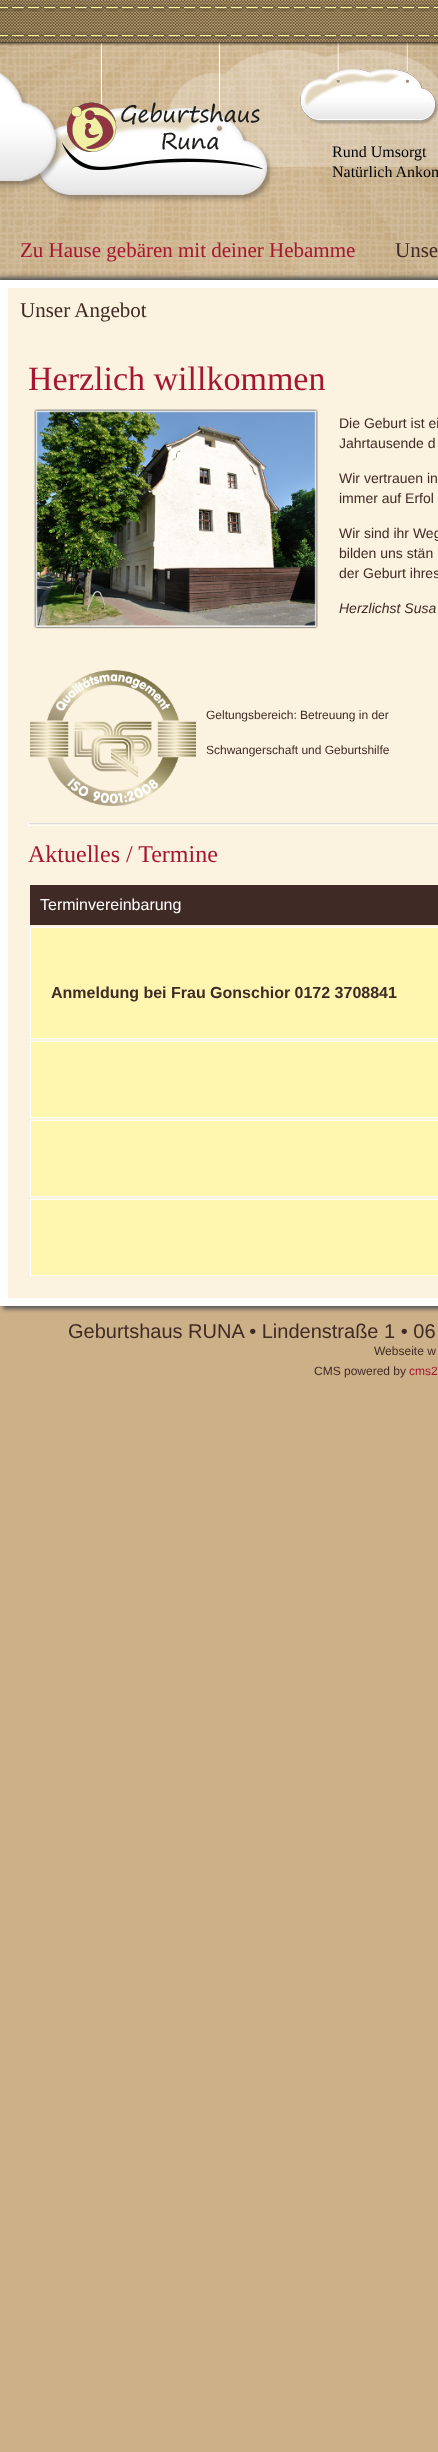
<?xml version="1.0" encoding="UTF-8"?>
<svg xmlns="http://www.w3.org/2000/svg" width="438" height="2452">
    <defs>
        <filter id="blur1" x="-50%" y="-200%" width="200%" height="500%"><feGaussianBlur stdDeviation="2"/></filter>
    </defs>
    <rect width="100%" height="100%" fill="#CCB088"/>
    <image x="0" y="42" width="438" height="238" href="img_01.png"/>
    <image x="0" y="0" width="438" height="202" href="img_02.png"/>
    <image x="62" y="102" width="201" height="68" href="img_03.png"/>
    <text font-family="Liberation Serif" font-size="16" fill="#000000">
        <tspan x="332" y="157">Rund Umsorgt</tspan>
        <tspan x="332" y="177">Natürlich Ankom</tspan>
    </text>
    <text x="20" y="257" font-family="Liberation Serif" font-size="21" fill="#A51731">Zu Hause gebären mit deiner Hebamme</text>
    <text x="395" y="257" font-family="Liberation Serif" font-size="21" fill="#402A25">Unse</text>
    <rect x="-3" y="277" width="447" height="1026" fill="#565656" filter="url(#blur1)"/>
    <rect x="3" y="283" width="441" height="1026" fill="#565656" filter="url(#blur1)"/>
    <rect x="4" y="284" width="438" height="1018" fill="#FBF2DF" stroke="#FFFFFF" stroke-width="8"/>
    <text x="20" y="317" font-family="Liberation Serif" font-size="21" fill="#402A25">Unser Angebot</text>
    <text x="28" y="390" font-family="Liberation Serif" font-size="34" fill="#A51731">Herzlich willkommen</text>
    <image x="34" y="409" width="284" height="220" href="img_04.png"/>
    <text font-family="Liberation Sans" font-size="14" fill="#402A25">
        <tspan x="339" y="428">Die Geburt ist ei</tspan>
        <tspan x="339" y="448">Jahrtausende d</tspan>
    </text>
    <text font-family="Liberation Sans" font-size="14" fill="#402A25">
        <tspan x="339" y="483">Wir vertrauen in</tspan>
        <tspan x="339" y="503">immer auf Erfol</tspan>
    </text>
    <text font-family="Liberation Sans" font-size="14" fill="#402A25">
        <tspan x="339" y="538">Wir sind ihr Weg</tspan>
        <tspan x="339" y="558">bilden uns stän</tspan>
        <tspan x="339" y="578">der Geburt ihres</tspan>
    </text>
    <text x="339" y="613" font-family="Liberation Sans" font-size="14" font-style="italic" fill="#402A25">Herzlichst Susa</text>
    <image x="30" y="670" width="166" height="136" href="img_05.png"/>
    <text x="206" y="719" font-family="Liberation Sans" font-size="12" fill="#402A25">Geltungsbereich: Betreuung in der</text>
    <text x="206" y="754" font-family="Liberation Sans" font-size="12" fill="#402A25">Schwangerschaft und Geburtshilfe</text>
    <rect x="28" y="823" width="410" height="1" fill="#DDDDDD"/>
    <rect x="28" y="825" width="410" height="1" fill="#FFFFFF"/>
    <rect x="28" y="823" width="1" height="3" fill="#FFFFFF"/>
    <text x="28" y="862" font-family="Liberation Serif" font-size="24" fill="#A51731">Aktuelles / Termine</text>
    <rect x="30" y="885" width="408" height="40" fill="#402A25"/>
    <text x="40" y="910" font-family="Liberation Sans" font-size="16" fill="#FFFFFF">Terminvereinbarung</text>
    <rect x="30.5" y="927.5" width="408" height="111" fill="#FFF7B0" stroke="#FFFFFF"/>
    <text x="51" y="998" font-family="Liberation Sans" font-size="16" font-weight="700" fill="#402A25">Anmeldung bei Frau Gonschior 0172 3708841</text>
    <rect x="30.5" y="1041.5" width="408" height="76" fill="#FFF7B0" stroke="#FFFFFF"/>
    <rect x="30.5" y="1120.5" width="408" height="76" fill="#FFF7B0" stroke="#FFFFFF"/>
    <rect x="30.5" y="1199.5" width="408" height="76" fill="#FFF7B0" stroke="#FFFFFF"/>
    <text x="68" y="1338" font-family="Liberation Sans" font-size="20" fill="#402A25">Geburtshaus RUNA • Lindenstraße 1 • 06</text>
    <text x="374" y="1355" font-family="Liberation Sans" font-size="12" fill="#402A25">Webseite w</text>
    <text x="314" y="1375" font-family="Liberation Sans" font-size="12" fill="#402A25">CMS powered by</text>
    <text x="409" y="1375" font-family="Liberation Sans" font-size="12" fill="#A51731">cms2</text>
</svg>
